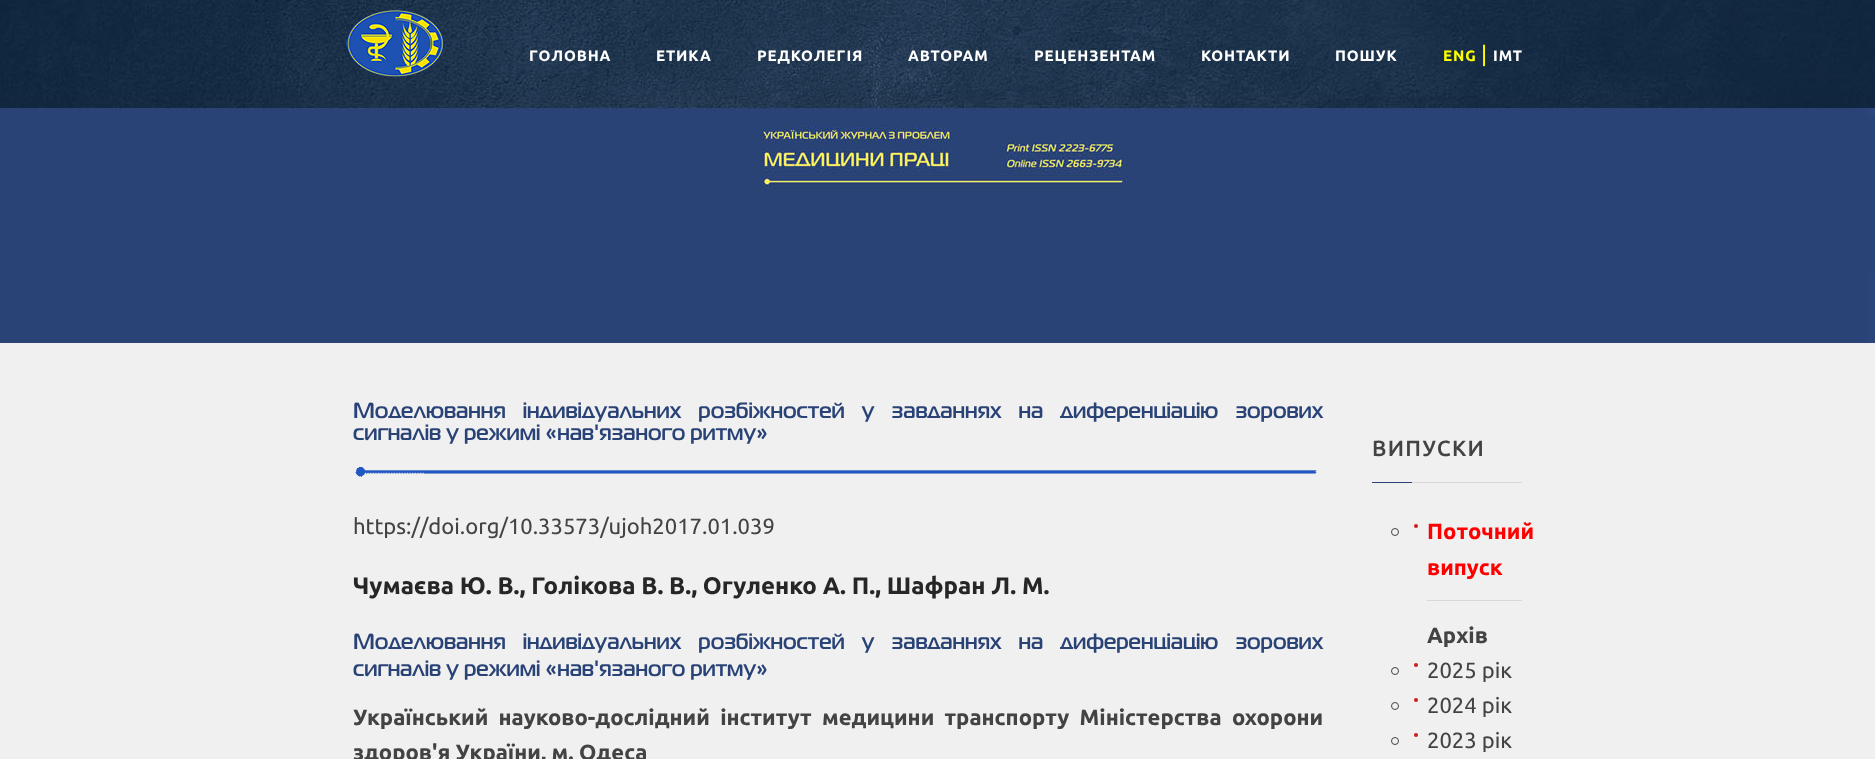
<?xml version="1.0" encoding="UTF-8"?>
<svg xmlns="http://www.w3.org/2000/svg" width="1875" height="759">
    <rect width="100%" height="100%" fill="#F0F0F0"/>
    <image x="0" y="0" width="1875" height="343" href="img_01.png"/>
    <image x="346" y="10" width="99" height="67" href="img_02.png"/>
    <text x="529" y="61" font-family="Ubuntu" font-size="15" font-weight="700" letter-spacing="0.9" fill="#FFFFFF">ГОЛОВНА</text>
    <text x="656" y="61" font-family="Ubuntu" font-size="15" font-weight="700" letter-spacing="0.9" fill="#FFFFFF">ЕТИКА</text>
    <text x="757" y="61" font-family="Ubuntu" font-size="15" font-weight="700" letter-spacing="0.9" fill="#FFFFFF">РЕДКОЛЕГІЯ</text>
    <text x="908" y="61" font-family="Ubuntu" font-size="15" font-weight="700" letter-spacing="0.9" fill="#FFFFFF">АВТОРАМ</text>
    <text x="1034" y="61" font-family="Ubuntu" font-size="15" font-weight="700" letter-spacing="0.9" fill="#FFFFFF">РЕЦЕНЗЕНТАМ</text>
    <text x="1201" y="61" font-family="Ubuntu" font-size="15" font-weight="700" letter-spacing="0.9" fill="#FFFFFF">КОНТАКТИ</text>
    <text x="1335" y="61" font-family="Ubuntu" font-size="15" font-weight="700" letter-spacing="0.9" fill="#FFFFFF">ПОШУК</text>
    <text x="1443" y="61" font-family="Ubuntu" font-size="15" font-weight="700" letter-spacing="0.9" fill="#FFFF00">ENG</text>
    <text x="1481" y="62" font-family="Ubuntu" font-size="22" fill="#FFFF00">|</text>
    <text x="1493" y="61" font-family="Ubuntu" font-size="15" font-weight="700" letter-spacing="0.9" fill="#FFFFFF">IMT</text>
    <text font-family="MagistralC" font-size="22" font-weight="700" fill="#2A4377">
        <tspan x="353" y="418" word-spacing="12">Моделювання індивідуальних розбіжностей у завданнях на диференціацію зорових</tspan>
        <tspan x="353" y="440">сигналів у режимі «нав'язаного ритму»</tspan>
    </text>
    <image x="355" y="467" width="962" height="10" href="img_03.png"/>
    <text x="353" y="534" font-family="Ubuntu" font-size="22" fill="#434345">https://doi.org/10.33573/ujoh2017.01.039</text>
    <text x="353" y="594" font-family="Ubuntu" font-size="24" font-weight="700" fill="#262627">Чумаєва Ю. В., Голікова В. В., Огуленко А. П., Шафран Л. М.</text>
    <text font-family="MagistralC" font-size="22" font-weight="700" fill="#2A4377">
        <tspan x="353" y="649" word-spacing="12">Моделювання індивідуальних розбіжностей у завданнях на диференціацію зорових</tspan>
        <tspan x="353" y="676">сигналів у режимі «нав'язаного ритму»</tspan>
    </text>
    <text font-family="Ubuntu" font-size="22" font-weight="700" fill="#434345">
        <tspan x="353" y="725" word-spacing="5">Український науково-дослідний інститут медицини транспорту Міністерства охорони</tspan>
        <tspan x="353" y="760">здоров'я України, м. Одеса</tspan>
    </text>
    <text x="1372" y="456" font-family="Ubuntu" font-size="22" font-weight="500" letter-spacing="1.25" fill="#434345">ВИПУСКИ</text>
    <rect x="1412" y="482" width="110" height="1" fill="#D9D9D9"/>
    <rect x="1372" y="482" width="40" height="1" fill="#2A4377"/>
    <circle cx="1416" cy="526" r="2" fill="#D01919"/>
    <text x="1427" y="539" font-family="Ubuntu" font-size="22" font-weight="700" fill="#FF0000">Поточний</text>
    <circle cx="1395" cy="532" r="3.5" fill="none" stroke="#434345"/>
    <text x="1427" y="575" font-family="Ubuntu" font-size="22" font-weight="700" fill="#FF0000">випуск</text>
    <rect x="1427" y="600" width="95" height="1" fill="#D8D8D8"/>
    <text x="1427" y="643" font-family="Ubuntu" font-size="22" font-weight="700" fill="#434345">Архів</text>
    <circle cx="1416" cy="665" r="2" fill="#D01919"/>
    <text x="1427" y="678" font-family="Ubuntu" font-size="22" fill="#434345">2025 рік</text>
    <circle cx="1395" cy="671" r="3.5" fill="none" stroke="#434345"/>
    <circle cx="1416" cy="700" r="2" fill="#D01919"/>
    <text x="1427" y="713" font-family="Ubuntu" font-size="22" fill="#434345">2024 рік</text>
    <circle cx="1395" cy="706" r="3.5" fill="none" stroke="#434345"/>
    <circle cx="1416" cy="735" r="2" fill="#D01919"/>
    <text x="1427" y="748" font-family="Ubuntu" font-size="22" fill="#434345">2023 рік</text>
    <circle cx="1395" cy="741" r="3.5" fill="none" stroke="#434345"/>
</svg>
